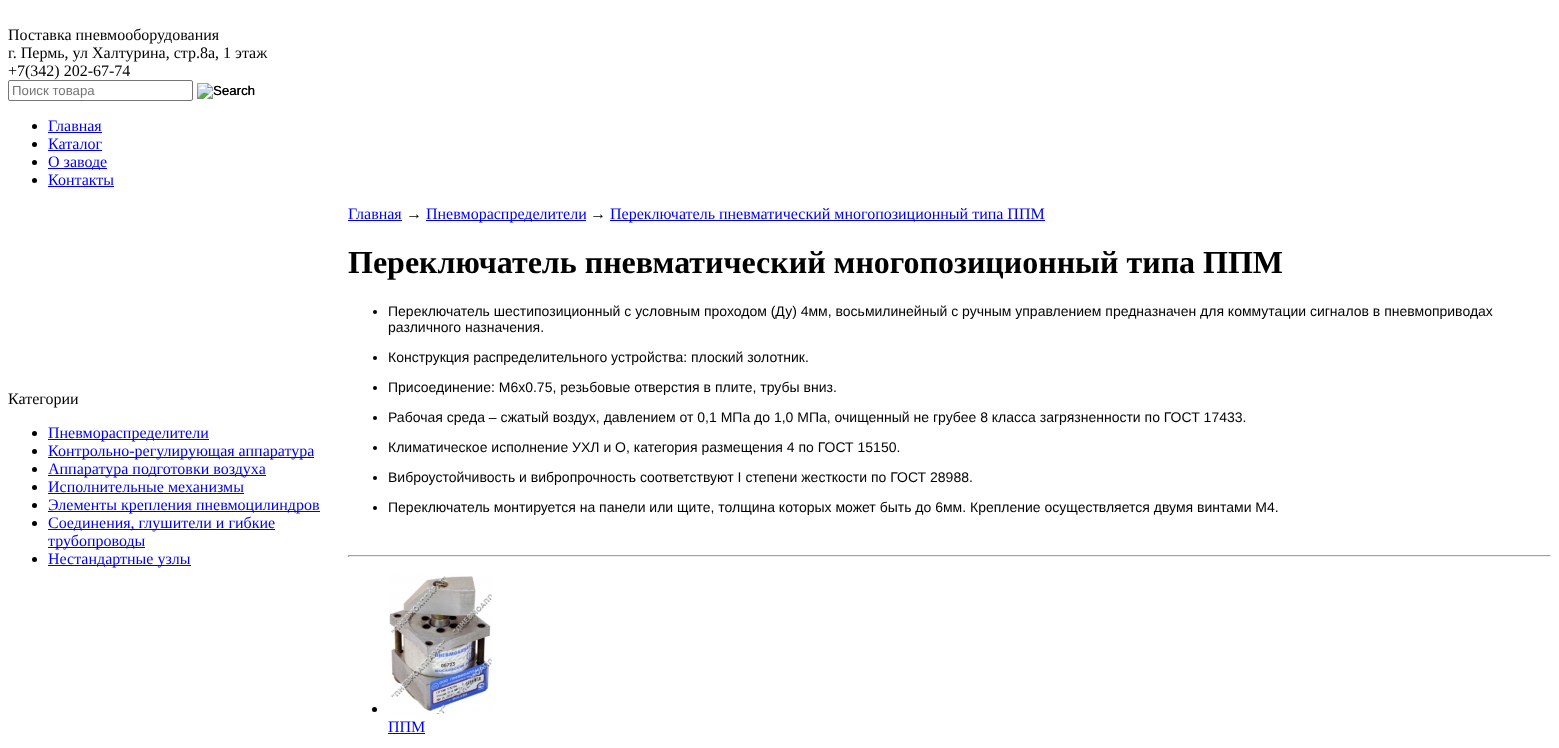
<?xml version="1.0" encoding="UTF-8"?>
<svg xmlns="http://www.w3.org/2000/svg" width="1559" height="748">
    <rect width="100%" height="100%" fill="#FFFFFF"/>
    <text font-family="Liberation Serif" font-size="16" fill="#000000">
        <tspan x="8" y="40">Поставка пневмооборудования</tspan>
        <tspan x="8" y="58">г. Пермь, ул Халтурина, стр.8а, 1 этаж</tspan>
        <tspan x="8" y="76">+7(342) 202-67-74</tspan>
    </text>
    <rect x="8.5" y="80.5" width="184" height="20" rx="1.5" fill="none" stroke="#767676"/>
    <text x="12" y="95" font-family="Liberation Sans" font-size="13.25" fill="#757575">Поиск товара</text>
    <image x="197" y="83" width="58" height="16" href="img_01.png"/>
    <text x="213" y="95" font-family="Liberation Sans" font-size="13.25" fill="#000000">Search</text>
    <circle cx="34.5" cy="126.5" r="2.5" fill="#000000"/>
    <text x="48" y="131" font-family="Liberation Serif" font-size="16" fill="#0000EE">Главная</text>
    <rect x="48" y="132" width="54" height="1" fill="#0000EE"/>
    <circle cx="34.5" cy="144.5" r="2.5" fill="#000000"/>
    <text x="48" y="149" font-family="Liberation Serif" font-size="16" fill="#0000EE">Каталог</text>
    <rect x="48" y="150" width="54" height="1" fill="#0000EE"/>
    <circle cx="34.5" cy="162.5" r="2.5" fill="#000000"/>
    <rect x="48" y="168" width="59" height="1" fill="#0000EE"/>
    <text x="48" y="167" font-family="Liberation Serif" font-size="16" fill="#0000EE">О заводе</text>
    <circle cx="34.5" cy="180.5" r="2.5" fill="#000000"/>
    <text x="48" y="185" font-family="Liberation Serif" font-size="16" fill="#0000EE">Контакты</text>
    <rect x="48" y="186" width="66" height="1" fill="#0000EE"/>
    <text x="8" y="404" font-family="Liberation Serif" font-size="16" fill="#000000">Категории</text>
    <circle cx="34.5" cy="433.5" r="2.5" fill="#000000"/>
    <rect x="48" y="439" width="161" height="1" fill="#0000EE"/>
    <text x="48" y="438" font-family="Liberation Serif" font-size="16" fill="#0000EE">Пневмораспределители</text>
    <circle cx="34.5" cy="451.5" r="2.5" fill="#000000"/>
    <rect x="48" y="457" width="266" height="1" fill="#0000EE"/>
    <text x="48" y="456" font-family="Liberation Serif" font-size="16" fill="#0000EE">Контрольно-регулирующая аппаратура</text>
    <circle cx="34.5" cy="469.5" r="2.5" fill="#000000"/>
    <rect x="48" y="475" width="218" height="1" fill="#0000EE"/>
    <text x="48" y="474" font-family="Liberation Serif" font-size="16" fill="#0000EE">Аппаратура подготовки воздуха</text>
    <circle cx="34.5" cy="487.5" r="2.5" fill="#000000"/>
    <text x="48" y="492" font-family="Liberation Serif" font-size="16" fill="#0000EE">Исполнительные механизмы</text>
    <rect x="48" y="493" width="196" height="1" fill="#0000EE"/>
    <circle cx="34.5" cy="505.5" r="2.5" fill="#000000"/>
    <rect x="48" y="511" width="272" height="1" fill="#0000EE"/>
    <text x="48" y="510" font-family="Liberation Serif" font-size="16" fill="#0000EE">Элементы крепления пневмоцилиндров</text>
    <circle cx="34.5" cy="523.5" r="2.5" fill="#000000"/>
    <rect x="48" y="529" width="227" height="1" fill="#0000EE"/>
    <text x="48" y="528" font-family="Liberation Serif" font-size="16" fill="#0000EE">Соединения, глушители и гибкие</text>
    <rect x="48" y="547" width="97" height="1" fill="#0000EE"/>
    <text x="48" y="546" font-family="Liberation Serif" font-size="16" fill="#0000EE">трубопроводы</text>
    <circle cx="34.5" cy="559.5" r="2.5" fill="#000000"/>
    <rect x="48" y="565" width="143" height="1" fill="#0000EE"/>
    <text x="48" y="564" font-family="Liberation Serif" font-size="16" fill="#0000EE">Нестандартные узлы</text>
    <text x="348" y="219" font-family="Liberation Serif" font-size="16" fill="#0000EE">Главная</text>
    <rect x="348" y="220" width="54" height="1" fill="#0000EE"/>
    <text x="406" y="219" font-family="Liberation Serif" font-size="16" fill="#000000">→</text>
    <rect x="426" y="220" width="160" height="1" fill="#0000EE"/>
    <text x="426" y="219" font-family="Liberation Serif" font-size="16" fill="#0000EE">Пневмораспределители</text>
    <text x="590" y="219" font-family="Liberation Serif" font-size="16" fill="#000000">→</text>
    <rect x="610" y="220" width="435" height="1" fill="#0000EE"/>
    <text x="610" y="219" font-family="Liberation Serif" font-size="16" fill="#0000EE">Переключатель пневматический многопозиционный типа ППМ</text>
    <text x="348" y="273" font-family="Liberation Serif" font-size="32" font-weight="700" fill="#000000">Переключатель пневматический многопозиционный типа ППМ</text>
    <circle cx="375" cy="312" r="2" fill="#000000"/>
    <text font-family="Liberation Sans" font-size="14" fill="#000000">
        <tspan x="388" y="316">Переключатель шестипозиционный с условным проходом (Ду) 4мм, восьмилинейный с ручным управлением предназначен для коммутации сигналов в пневмоприводах</tspan>
        <tspan x="388" y="332">различного назначения.</tspan>
    </text>
    <circle cx="375" cy="358" r="2" fill="#000000"/>
    <text x="388" y="362" font-family="Liberation Sans" font-size="14" fill="#000000">Конструкция распределительного устройства: плоский золотник.</text>
    <circle cx="375" cy="388" r="2" fill="#000000"/>
    <text x="388" y="392" font-family="Liberation Sans" font-size="14" fill="#000000">Присоединение: М6х0.75, резьбовые отверстия в плите, трубы вниз.</text>
    <circle cx="375" cy="418" r="2" fill="#000000"/>
    <text x="388" y="422" font-family="Liberation Sans" font-size="14" fill="#000000">Рабочая среда – сжатый воздух, давлением от 0,1 МПа до 1,0 МПа, очищенный не грубее 8 класса загрязненности по ГОСТ 17433.</text>
    <circle cx="375" cy="448" r="2" fill="#000000"/>
    <text x="388" y="452" font-family="Liberation Sans" font-size="14" fill="#000000">Климатическое исполнение УХЛ и О, категория размещения 4 по ГОСТ 15150.</text>
    <circle cx="375" cy="478" r="2" fill="#000000"/>
    <text x="388" y="482" font-family="Liberation Sans" font-size="14" fill="#000000">Виброустойчивость и вибропрочность соответствуют I степени жесткости по ГОСТ 28988.</text>
    <circle cx="375" cy="508" r="2" fill="#000000"/>
    <text x="388" y="512" font-family="Liberation Sans" font-size="14" fill="#000000">Переключатель монтируется на панели или щите, толщина которых может быть до 6мм. Крепление осуществляется двумя винтами М4.</text>
    <rect x="348" y="555" width="1203" height="1" fill="#9F9F9F"/>
    <rect x="1550" y="555" width="1" height="2" fill="#EEEEEE"/>
    <rect x="348" y="556" width="1203" height="1" fill="#EEEEEE"/>
    <rect x="348" y="555" width="1" height="2" fill="#9F9F9F"/>
    <circle cx="374.5" cy="709.5" r="2.5" fill="#000000"/>
    <image x="389" y="575" width="103" height="139" href="img_02.png"/>
    <text x="388" y="732" font-family="Liberation Serif" font-size="16" fill="#0000EE">ППМ</text>
    <rect x="388" y="733" width="37" height="1" fill="#0000EE"/>
</svg>
